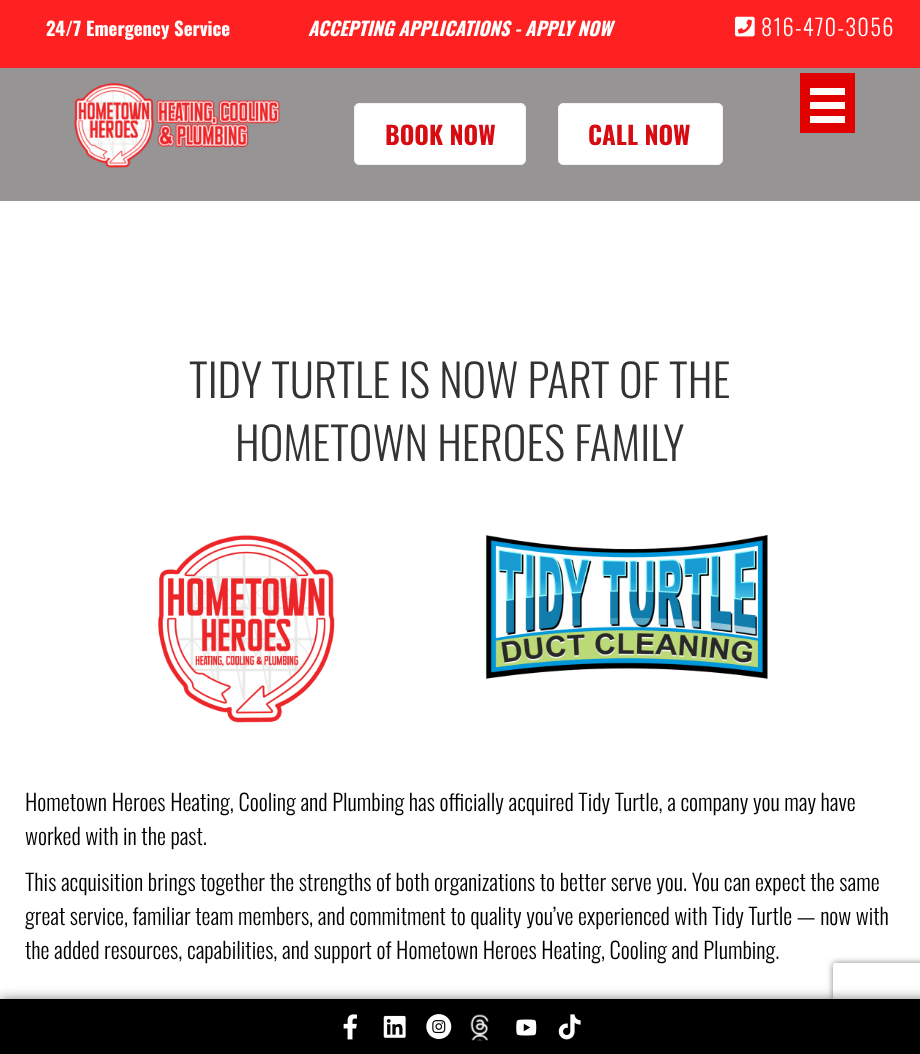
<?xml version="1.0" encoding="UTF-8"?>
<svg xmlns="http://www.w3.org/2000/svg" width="920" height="1054">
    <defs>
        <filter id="blur1" x="-50%" y="-200%" width="200%" height="500%"><feGaussianBlur stdDeviation="6"/></filter>
        <clipPath id="clip1"><path d="M 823 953 H 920 V 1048 H 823 Z M 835.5 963 H 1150.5 C 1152 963 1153 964 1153 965.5 V 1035.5 C 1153 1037 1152 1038 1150.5 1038 H 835.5 C 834 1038 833 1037 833 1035.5 V 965.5 C 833 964 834 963 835.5 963 Z" clip-rule="evenodd"/></clipPath>
        <filter id="blur2" x="-50%" y="-200%" width="200%" height="500%"><feGaussianBlur stdDeviation="3"/></filter>
    </defs>
    <rect width="100%" height="100%" fill="#FFFFFF"/>
    <rect x="0" y="0" width="920" height="68" fill="#FF2121"/>
    <text x="46" y="36" font-family="Oswald" font-size="18.75" font-weight="700" fill="#FFFFFF">24/7 Emergency Service</text>
    <text x="308" y="36" font-family="Oswald" font-size="18.75" font-weight="700" font-style="italic" fill="#FFFFFF">ACCEPTING APPLICATIONS - APPLY NOW</text>
    <image x="735" y="16" width="20" height="21" href="img_01.png"/>
    <text x="761" y="36" font-family="Oswald" font-size="22.5" font-weight="300" letter-spacing="1.25" fill="#FFFFFF">816-470-3056</text>
    <rect x="0" y="68" width="920" height="133" fill="#969494"/>
    <image x="74" y="83" width="206" height="85" href="img_02.png"/>
    <rect x="354.5" y="103.5" width="171" height="61" rx="4.5" fill="#FFFFFF" stroke="#F3F3F3"/>
    <text x="385" y="145" font-family="Oswald" font-size="25" font-weight="700" fill="#D70B12">BOOK NOW</text>
    <rect x="558.5" y="103.5" width="164" height="61" rx="4.5" fill="#FFFFFF" stroke="#F3F3F3"/>
    <text x="588" y="145" font-family="Oswald" font-size="25" font-weight="700" fill="#D70B12">CALL NOW</text>
    <rect x="800" y="73" width="55" height="60" fill="#E00000"/>
    <rect x="810" y="88" width="35" height="7" fill="#FFFCFC"/>
    <rect x="810" y="102" width="35" height="7" fill="#FFFCFC"/>
    <rect x="810" y="116" width="35" height="7" fill="#FFFCFC"/>
    <text x="189" y="398" font-family="Oswald" font-size="45" font-weight="300" fill="#333333">TIDY TURTLE IS NOW PART OF THE</text>
    <text x="235" y="461" font-family="Oswald" font-size="45" font-weight="300" fill="#333333">HOMETOWN HEROES FAMILY</text>
    <image x="158" y="535" width="177" height="188" href="img_03.png"/>
    <image x="486" y="535" width="282" height="144" href="img_04.png"/>
    <text font-family="Oswald" font-size="22.5" font-weight="300" fill="#000000">
        <tspan x="25" y="811">Hometown Heroes Heating, Cooling and Plumbing has officially acquired Tidy Turtle, a company you may have</tspan>
        <tspan x="25" y="845">worked with in the past.</tspan>
    </text>
    <text font-family="Oswald" font-size="22.5" font-weight="300" fill="#000000">
        <tspan x="25" y="891">This acquisition brings together the strengths of both organizations to better serve you. You can expect the same</tspan>
        <tspan x="25" y="925">great service, familiar team members, and commitment to quality you’ve experienced with Tidy Turtle — now with</tspan>
        <tspan x="25" y="959">the added resources, capabilities, and support of Hometown Heroes Heating, Cooling and Plumbing.</tspan>
    </text>
    <rect x="0" y="999" width="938" height="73" fill="#000000" fill-opacity="0.5" filter="url(#blur1)"/>
    <g clip-path="url(#clip1)">
        <rect x="833" y="963" width="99" height="75" rx="2.5" fill="#808080" filter="url(#blur2)"/>
    </g>
    <rect x="0" y="999" width="920" height="55" fill="#000000"/>
    <image x="343" y="1014" width="14" height="26" href="img_05.png"/>
    <image x="383" y="1015" width="23" height="23" href="img_06.png"/>
    <image x="426" y="1014" width="26" height="26" href="img_07.png"/>
    <image x="470" y="1014" width="19" height="27" href="img_08.png"/>
    <image x="516" y="1019" width="21" height="17" href="img_09.png"/>
    <image x="558" y="1014" width="23" height="26" href="img_10.png"/>
</svg>
